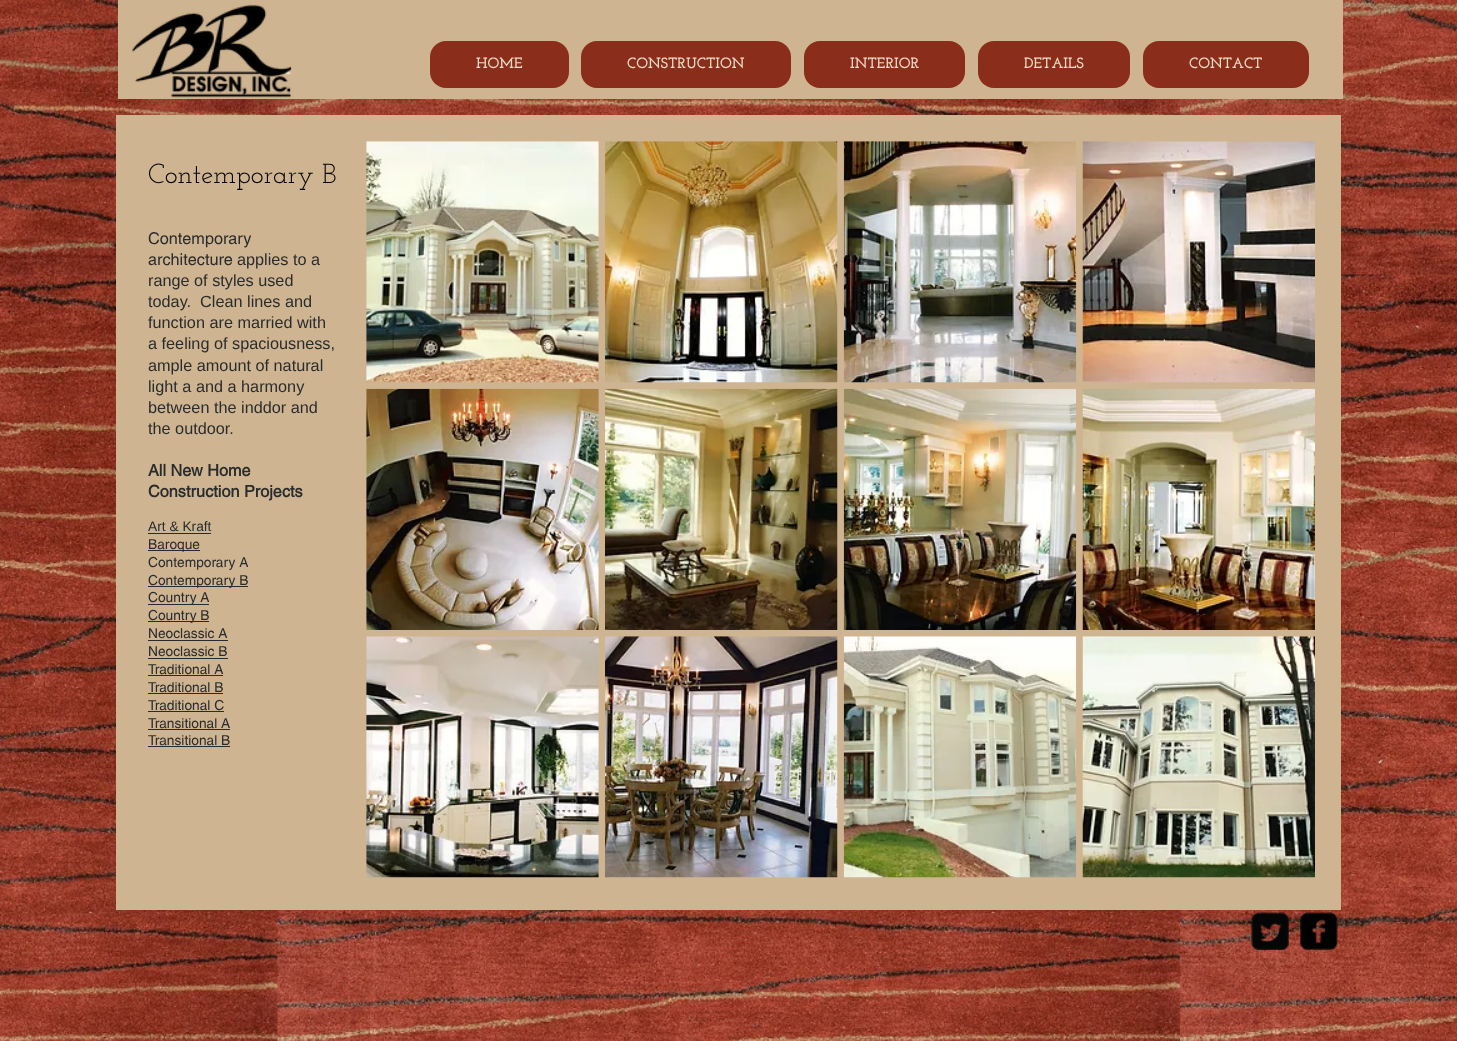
<?xml version="1.0" encoding="UTF-8"?>
<svg xmlns="http://www.w3.org/2000/svg" width="1457" height="1041">
    <rect width="100%" height="100%" fill="#FFFFFF"/>
    <image x="0" y="0" width="1457" height="1041" href="img_01.png"/>
    <rect x="118" y="0" width="1225" height="99" fill="#CFB491"/>
    <image x="132" y="4" width="160" height="94" href="img_02.png"/>
    <rect x="430" y="41" width="139" height="47" rx="16" fill="#8B2D1B"/>
    <text x="476" y="68" font-family="Josefin Slab" font-size="15" font-weight="700" fill="#EBDAC5">HOME</text>
    <rect x="581" y="41" width="210" height="47" rx="16" fill="#8B2D1B"/>
    <text x="627" y="68" font-family="Josefin Slab" font-size="15" font-weight="700" fill="#EBDAC5">CONSTRUCTION</text>
    <rect x="804" y="41" width="161" height="47" rx="16" fill="#8B2D1B"/>
    <text x="850" y="68" font-family="Josefin Slab" font-size="15" font-weight="700" fill="#EBDAC5">INTERIOR</text>
    <rect x="978" y="41" width="152" height="47" rx="16" fill="#8B2D1B"/>
    <text x="1024" y="68" font-family="Josefin Slab" font-size="15" font-weight="700" fill="#EBDAC5">DETAILS</text>
    <rect x="1143" y="41" width="166" height="47" rx="16" fill="#8B2D1B"/>
    <text x="1189" y="68" font-family="Josefin Slab" font-size="15" font-weight="700" fill="#EBDAC5">CONTACT</text>
    <rect x="116" y="115" width="1225" height="795" fill="#CFB491"/>
    <text x="148" y="183" font-family="Josefin Slab" font-size="27.5" fill="#000000">Contemporary B</text>
    <image x="366" y="141" width="233" height="242" href="img_03.png"/>
    <image x="605" y="141" width="233" height="242" href="img_04.png"/>
    <image x="843" y="141" width="234" height="242" href="img_05.png"/>
    <image x="1082" y="141" width="233" height="242" href="img_06.png"/>
    <image x="366" y="388" width="233" height="242" href="img_07.png"/>
    <image x="605" y="388" width="233" height="242" href="img_08.png"/>
    <image x="843" y="388" width="234" height="242" href="img_09.png"/>
    <image x="1082" y="388" width="233" height="242" href="img_10.png"/>
    <image x="366" y="636" width="233" height="242" href="img_11.png"/>
    <image x="605" y="636" width="233" height="242" href="img_12.png"/>
    <image x="843" y="636" width="234" height="242" href="img_13.png"/>
    <image x="1082" y="636" width="233" height="242" href="img_14.png"/>
    <text font-family="helvetica" font-size="16.25" fill="#292C2D">
        <tspan x="148" y="244">Contemporary</tspan>
        <tspan x="148" y="265">architecture</tspan>
    </text>
    <text x="237" y="265" font-family="Liberation Sans" font-size="16.25" fill="#292C2D">applies to a</text>
    <text font-family="Liberation Sans" font-size="16.25" fill="#292C2D" xml:space="preserve"><tspan x="148" y="286">range of styles used</tspan><tspan x="148" y="307">today.  Clean lines and</tspan><tspan x="148" y="328">function are married with</tspan><tspan x="148" y="349">a feeling of spaciousness,</tspan><tspan x="148" y="371">ample amount of natural</tspan><tspan x="148" y="392">light a and a harmony</tspan><tspan x="148" y="413">between the inddor and</tspan><tspan x="148" y="434">the outdoor.</tspan></text>
    <text font-family="helvetica" font-size="16.25" font-weight="700" fill="#292C2D">
        <tspan x="148" y="476">All New Home</tspan>
        <tspan x="148" y="497">Construction Projects</tspan>
    </text>
    <text x="148" y="531" font-family="Liberation Sans" font-size="13.75" fill="#292C2D">Art &amp; Kraft</text>
    <rect x="148" y="533" width="63" height="1" fill="#292C2D"/>
    <rect x="148" y="550" width="52" height="1" fill="#292C2D"/>
    <text font-family="helvetica" font-size="13.75" fill="#292C2D">
        <tspan x="148" y="549">Baroque</tspan>
        <tspan x="148" y="567">Contemporary A</tspan>
    </text>
    <rect x="148" y="586" width="100" height="1" fill="#292C2D"/>
    <text x="148" y="585" font-family="helvetica" font-size="13.75" fill="#292C2D">Contemporary B</text>
    <rect x="148" y="604" width="61" height="1" fill="#292C2D"/>
    <text x="148" y="602" font-family="helvetica" font-size="13.75" fill="#292C2D">Country A</text>
    <rect x="148" y="621" width="61" height="1" fill="#292C2D"/>
    <text font-family="helvetica" font-size="13.75" fill="#292C2D">
        <tspan x="148" y="620">Country B</tspan>
        <tspan x="148" y="638">Neoclassic A</tspan>
    </text>
    <rect x="148" y="640" width="80" height="1" fill="#292C2D"/>
    <text x="148" y="656" font-family="helvetica" font-size="13.75" fill="#292C2D">Neoclassic B</text>
    <rect x="148" y="658" width="80" height="1" fill="#292C2D"/>
    <text x="148" y="674" font-family="helvetica" font-size="13.75" fill="#292C2D">Traditional A</text>
    <rect x="148" y="675" width="75" height="1" fill="#292C2D"/>
    <text x="148" y="692" font-family="helvetica" font-size="13.75" fill="#292C2D">Traditional B</text>
    <rect x="148" y="693" width="75" height="1" fill="#292C2D"/>
    <text x="148" y="710" font-family="helvetica" font-size="13.75" fill="#292C2D">Traditional C</text>
    <rect x="148" y="711" width="76" height="1" fill="#292C2D"/>
    <text x="148" y="728" font-family="helvetica" font-size="13.75" fill="#292C2D">Transitional A</text>
    <rect x="148" y="729" width="82" height="1" fill="#292C2D"/>
    <text x="148" y="745" font-family="helvetica" font-size="13.75" fill="#292C2D">Transitional B</text>
    <rect x="148" y="746" width="82" height="1" fill="#292C2D"/>
    <image x="1251" y="912" width="38" height="38" href="img_15.png"/>
    <image x="1300" y="912" width="38" height="38" href="img_16.png"/>
</svg>
